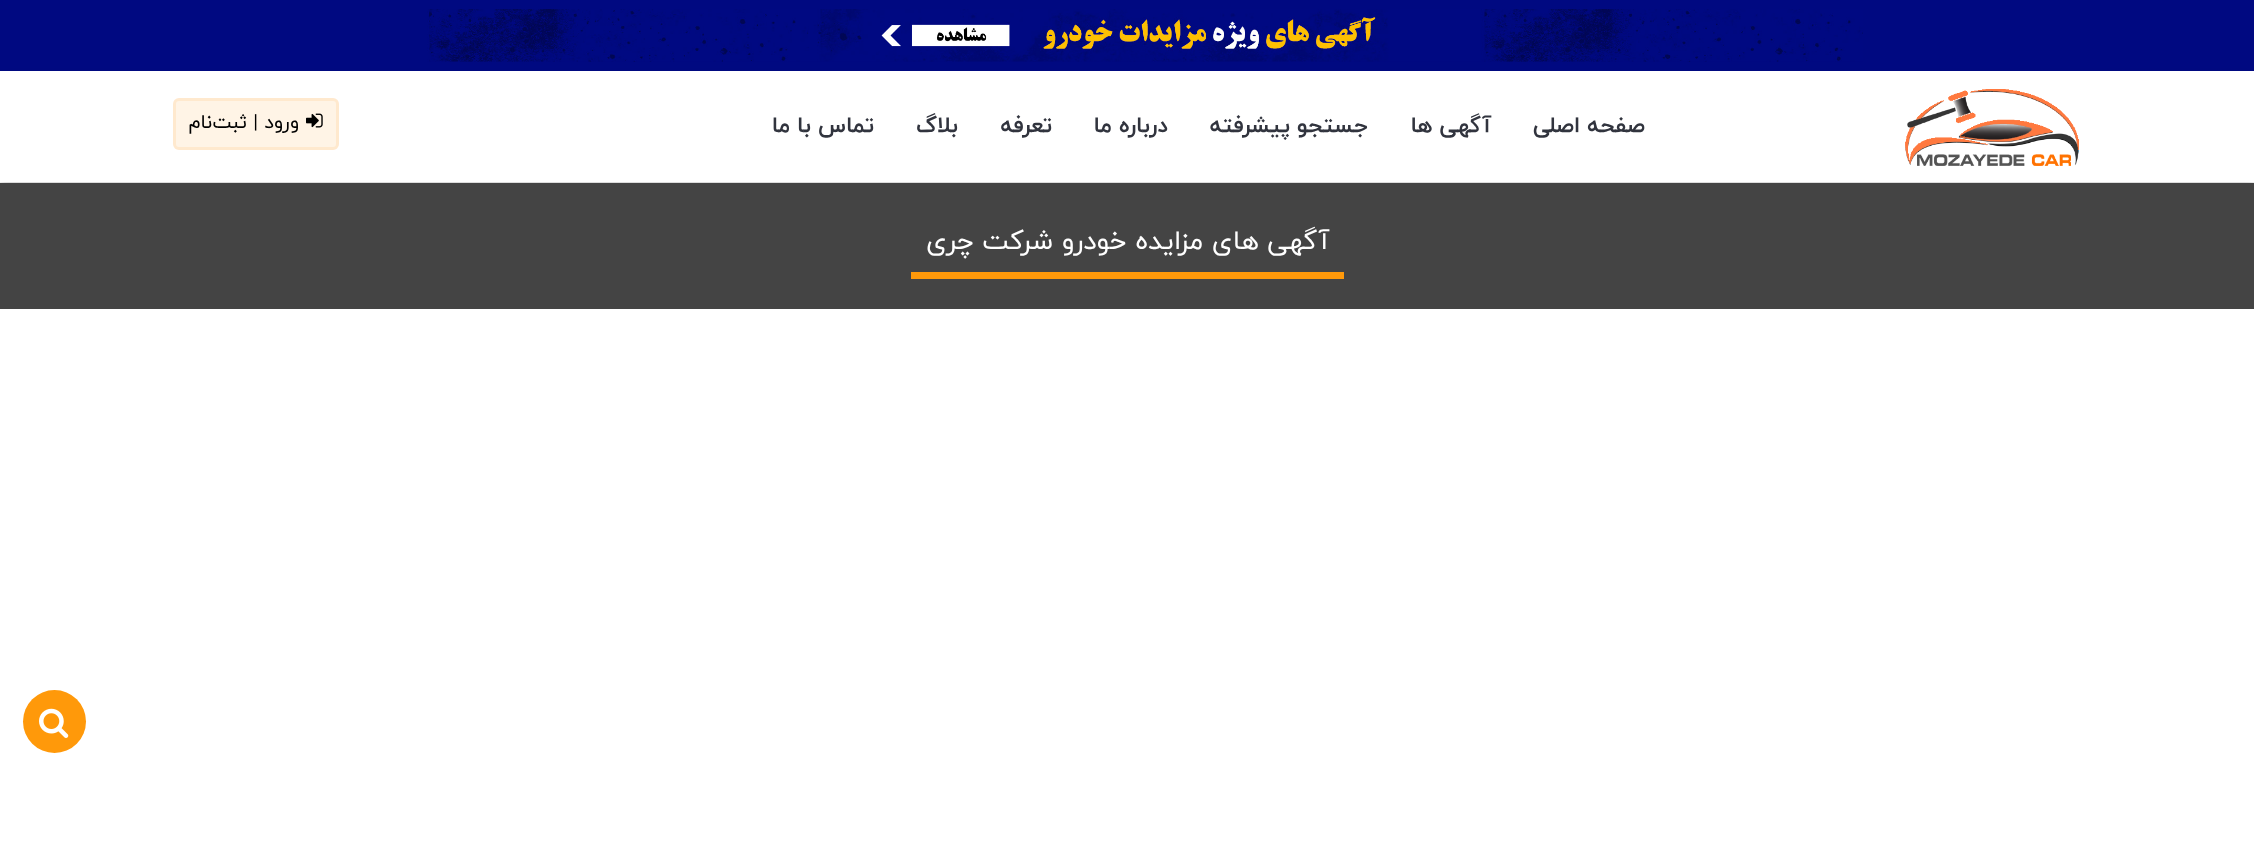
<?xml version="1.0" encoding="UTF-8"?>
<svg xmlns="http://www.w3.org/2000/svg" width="2254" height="865">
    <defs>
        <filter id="blur1" x="-50%" y="-200%" width="200%" height="500%"><feGaussianBlur stdDeviation="5"/></filter>
    </defs>
    <rect width="100%" height="100%" fill="#FFFFFF"/>
    <rect x="0" y="0" width="2254" height="71" fill="#000981"/>
    <image x="427" y="9" width="1436" height="53" href="img_01.png"/>
    <rect x="0" y="78" width="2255" height="111" fill="#000000" fill-opacity="0.15" filter="url(#blur1)"/>
    <rect x="0" y="71" width="2254" height="111" fill="#FFFFFF"/>
    <image x="1905" y="89" width="174" height="77" href="img_02.png"/>
    <text x="1645" y="132" font-family="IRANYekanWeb" font-size="22.5" font-weight="700" direction="rtl" fill="#31343E">صفحه اصلی</text>
    <text x="1491" y="132" font-family="IRANYekanWeb" font-size="22.5" font-weight="700" direction="rtl" fill="#31343E">آگهی ها</text>
    <text x="1368" y="132" font-family="IRANYekanWeb" font-size="22.5" font-weight="700" direction="rtl" fill="#31343E">جستجو پیشرفته</text>
    <text x="1168" y="132" font-family="IRANYekanWeb" font-size="22.5" font-weight="700" direction="rtl" fill="#31343E">درباره ما</text>
    <text x="1052" y="132" font-family="IRANYekanWeb" font-size="22.5" font-weight="700" direction="rtl" fill="#31343E">تعرفه</text>
    <text x="958" y="132" font-family="IRANYekanWeb" font-size="22.5" font-weight="700" direction="rtl" fill="#31343E">بلاگ</text>
    <text x="874" y="132" font-family="IRANYekanWeb" font-size="22.5" font-weight="700" direction="rtl" fill="#31343E">تماس با ما</text>
    <rect x="173" y="98" width="166" height="52" rx="6" fill="#FFF4E6"/>
    <rect x="174.5" y="99.5" width="163" height="49" rx="4.5" fill="none" stroke="#FB8C00" stroke-opacity="0.1" stroke-width="3"/>
    <image x="306" y="113" width="17" height="15" href="img_03.png"/>
    <text x="299" y="128" font-family="IRANYekanWeb" font-size="19.5" direction="rtl" fill="#000000">ورود</text>
    <text x="258" y="128" font-family="Roboto" font-size="19.5" direction="rtl" fill="#000000">|</text>
    <text x="247" y="128" font-family="IRANYekanWeb" font-size="19.5" direction="rtl" fill="#000000">ثبت‌نام</text>
    <rect x="0" y="183" width="2254" height="126" fill="#444444"/>
    <rect x="911" y="272" width="433" height="7" fill="#FF990A"/>
    <text x="1329" y="249" font-family="IRANYekanWeb" font-size="27" direction="rtl" fill="#FFFFFF">آگهی های مزایده خودرو</text>
    <text x="1053" y="249" font-family="IRANYekanWeb" font-size="27" direction="rtl" fill="#FFFFFF">شرکت</text>
    <text x="974" y="249" font-family="IRANYekanWeb" font-size="27" direction="rtl" fill="#FFFFFF">چری</text>
    <circle cx="54.5" cy="721.5" r="31.5" fill="#FF990A"/>
    <image x="39" y="708" width="30" height="30" href="img_04.png"/>
</svg>
